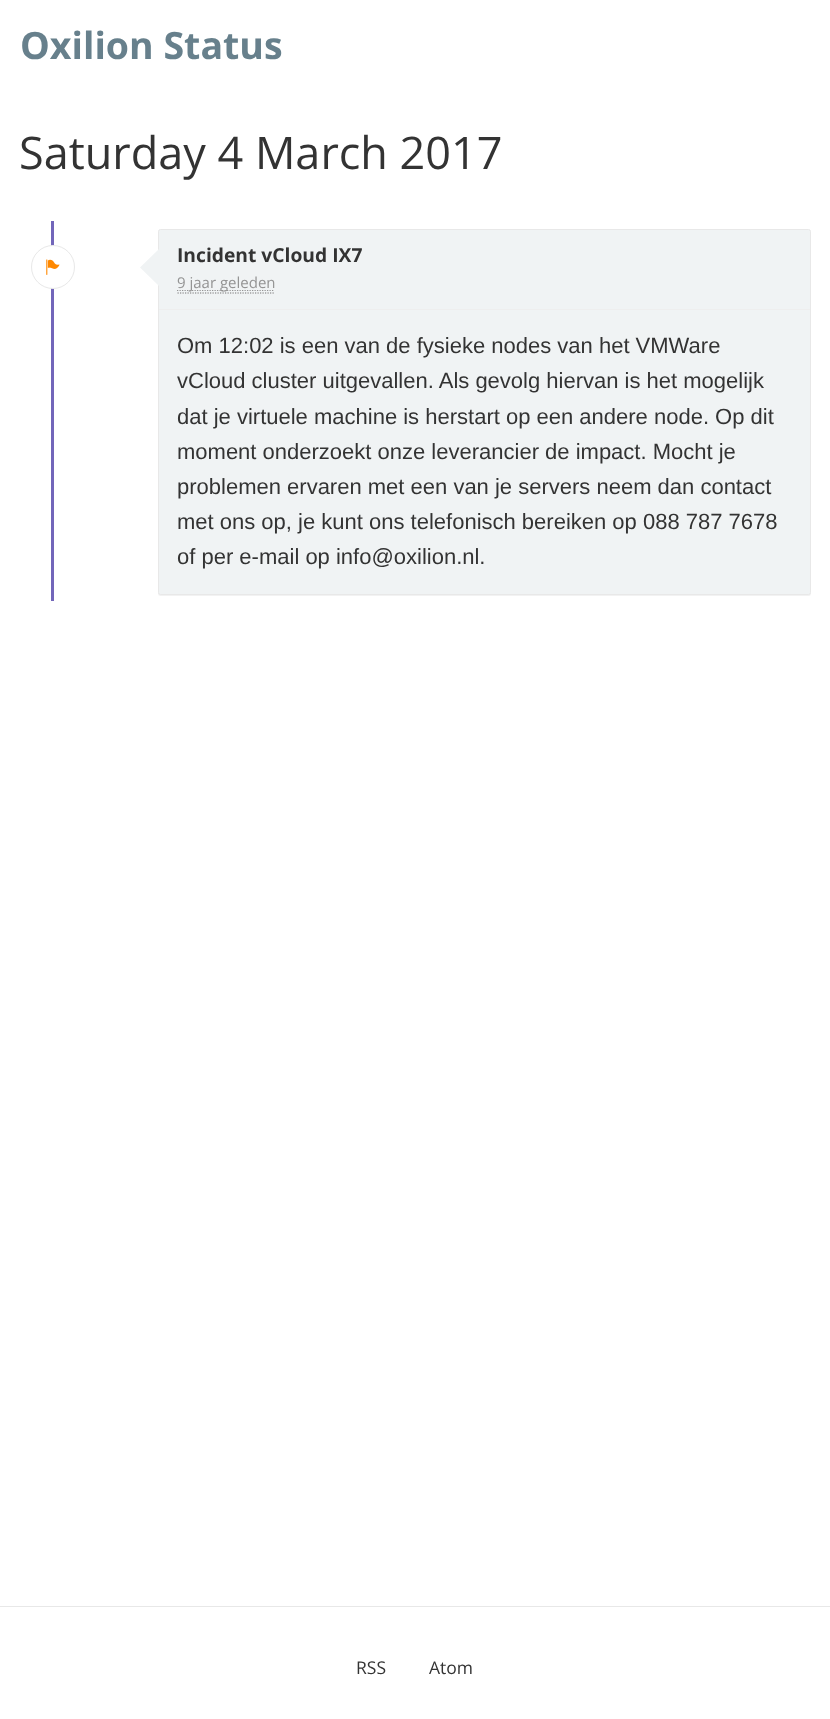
<?xml version="1.0" encoding="UTF-8"?>
<svg xmlns="http://www.w3.org/2000/svg" width="830" height="1719">
    <defs>
        <filter id="blur1" x="-50%" y="-200%" width="200%" height="500%"><feGaussianBlur stdDeviation="0.5"/></filter>
    </defs>
    <rect width="100%" height="100%" fill="#FFFFFF"/>
    <text x="20" y="59" font-family="Open Sans" font-size="37.5" font-weight="700" fill="#67808C">Oxilion Status</text>
    <text x="19" y="169" font-family="Open Sans" font-size="45" fill="#333333">Saturday 4 March 2017</text>
    <rect x="51" y="221" width="3" height="380" fill="#7266BA"/>
    <circle cx="53" cy="267" r="21.5" fill="#FFFFFF" stroke="#E8E8E8"/>
    <image x="46" y="259" width="14" height="16" href="img_01.png"/>
    <rect x="158" y="230" width="653" height="366" rx="2.5" fill="#000000" fill-opacity="0.05" filter="url(#blur1)"/>
    <rect x="158.5" y="229.5" width="652" height="365" rx="2" fill="#F0F3F4" stroke="#E8E8E8"/>
    <path d="M 159 249 V 286 L 140 267.5 Z" fill="#F0F3F4"/>
    <text x="177" y="262" font-family="Open Sans" font-size="19.25" font-weight="700" fill="#333333">Incident vCloud IX7</text>
    <path d="M 177 290.5 H 274.5" fill="none" stroke="#949494" stroke-width="1.2" stroke-dasharray="1.25 1.25"/>
    <text x="177" y="288" font-family="Open Sans" font-size="15" fill="#949494">9 jaar geleden</text>
    <path d="M 177.5 293 H 275" fill="none" stroke="#777777" stroke-width="1.2" stroke-dasharray="1.25 1.25"/>
    <rect x="159" y="309" width="651" height="1" fill="#EEEEEE"/>
    <text font-family="Liberation Sans" font-size="22" fill="#333333">
        <tspan x="177" y="353">Om 12:02 is een van de fysieke nodes van het VMWare</tspan>
        <tspan x="177" y="388">vCloud cluster uitgevallen. Als gevolg hiervan is het mogelijk</tspan>
        <tspan x="177" y="424">dat je virtuele machine is herstart op een andere node. Op dit</tspan>
        <tspan x="177" y="459">moment onderzoekt onze leverancier de impact. Mocht je</tspan>
        <tspan x="177" y="494">problemen ervaren met een van je servers neem dan contact</tspan>
        <tspan x="177" y="529">met ons op, je kunt ons telefonisch bereiken op 088 787 7678</tspan>
        <tspan x="177" y="564">of per e-mail op info@oxilion.nl.</tspan>
    </text>
    <rect x="0" y="1606" width="830" height="1" fill="#E8E8E8"/>
    <text x="356" y="1674" font-family="Open Sans" font-size="17.5" fill="#333333">RSS</text>
    <text x="429" y="1674" font-family="Open Sans" font-size="17.5" fill="#333333">Atom</text>
</svg>
